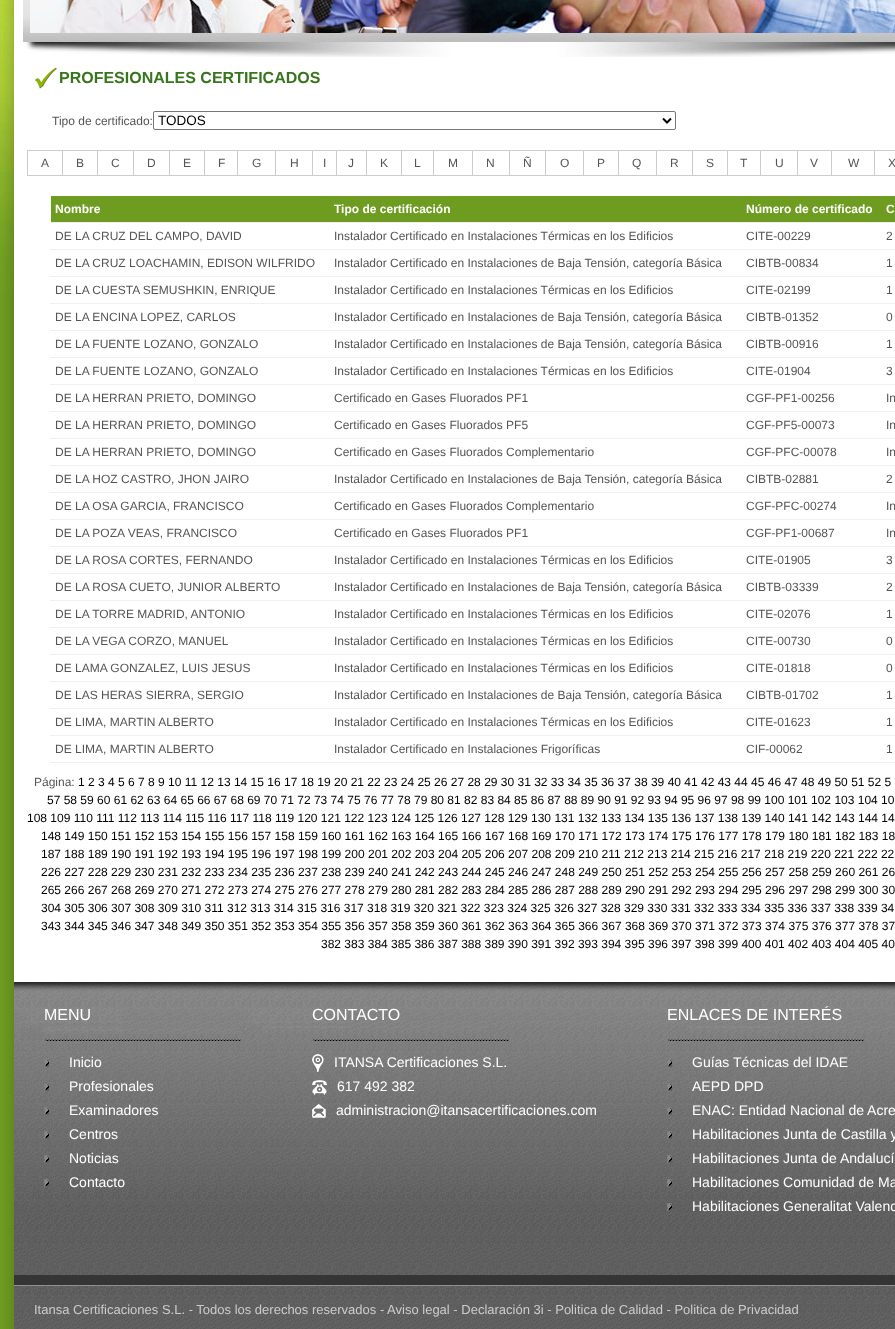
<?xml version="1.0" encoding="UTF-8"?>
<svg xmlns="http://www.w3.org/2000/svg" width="895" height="1329">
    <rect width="100%" height="100%" fill="#6E9C21"/>
    <image x="0" y="0" width="14" height="315" href="img_01.png"/>
    <image x="3" y="0" width="892" height="1329" href="img_02.png"/>
    <image x="22" y="0" width="873" height="57" href="img_03.png"/>
    <image x="34" y="67" width="23" height="22" href="img_04.png"/>
    <text x="59" y="83" font-family="Liberation Sans" font-size="16" font-weight="700" fill="#38761D">PROFESIONALES CERTIFICADOS</text>
    <text x="52" y="125" font-family="Liberation Sans" font-size="12" fill="#555555">Tipo de certificado:</text>
    <rect x="153.5" y="111.5" width="522" height="18" rx="1.5" fill="none" stroke="#767676"/>
    <path d="M 663 118.5 L 667 122.5 L 671 118.5" fill="none" stroke="#000000" stroke-width="2"/>
    <text x="158" y="125" font-family="Liberation Sans" font-size="13.5" fill="#000000">TODOS</text>
    <rect x="874" y="150" width="21" height="1" fill="#CCCCCC"/>
    <rect x="874" y="175" width="21" height="1" fill="#CCCCCC"/>
    <rect x="874" y="150" width="1" height="26" fill="#CCCCCC"/>
    <rect x="831" y="150" width="44" height="1" fill="#CCCCCC"/>
    <rect x="831" y="175" width="44" height="1" fill="#CCCCCC"/>
    <rect x="831" y="150" width="1" height="26" fill="#CCCCCC"/>
    <rect x="797" y="150" width="35" height="1" fill="#CCCCCC"/>
    <rect x="797" y="175" width="35" height="1" fill="#CCCCCC"/>
    <rect x="797" y="150" width="1" height="26" fill="#CCCCCC"/>
    <rect x="760" y="150" width="38" height="1" fill="#CCCCCC"/>
    <rect x="760" y="175" width="38" height="1" fill="#CCCCCC"/>
    <rect x="760" y="150" width="1" height="26" fill="#CCCCCC"/>
    <rect x="727" y="150" width="34" height="1" fill="#CCCCCC"/>
    <rect x="727" y="175" width="34" height="1" fill="#CCCCCC"/>
    <rect x="727" y="150" width="1" height="26" fill="#CCCCCC"/>
    <rect x="692" y="150" width="36" height="1" fill="#CCCCCC"/>
    <rect x="692" y="175" width="36" height="1" fill="#CCCCCC"/>
    <rect x="692" y="150" width="1" height="26" fill="#CCCCCC"/>
    <rect x="656" y="150" width="37" height="1" fill="#CCCCCC"/>
    <rect x="656" y="175" width="37" height="1" fill="#CCCCCC"/>
    <rect x="656" y="150" width="1" height="26" fill="#CCCCCC"/>
    <rect x="618" y="150" width="39" height="1" fill="#CCCCCC"/>
    <rect x="618" y="175" width="39" height="1" fill="#CCCCCC"/>
    <rect x="618" y="150" width="1" height="26" fill="#CCCCCC"/>
    <rect x="583" y="150" width="36" height="1" fill="#CCCCCC"/>
    <rect x="583" y="175" width="36" height="1" fill="#CCCCCC"/>
    <rect x="583" y="150" width="1" height="26" fill="#CCCCCC"/>
    <rect x="545" y="150" width="39" height="1" fill="#CCCCCC"/>
    <rect x="545" y="175" width="39" height="1" fill="#CCCCCC"/>
    <rect x="545" y="150" width="1" height="26" fill="#CCCCCC"/>
    <rect x="509" y="150" width="37" height="1" fill="#CCCCCC"/>
    <rect x="509" y="175" width="37" height="1" fill="#CCCCCC"/>
    <rect x="509" y="150" width="1" height="26" fill="#CCCCCC"/>
    <rect x="472" y="150" width="38" height="1" fill="#CCCCCC"/>
    <rect x="472" y="175" width="38" height="1" fill="#CCCCCC"/>
    <rect x="472" y="150" width="1" height="26" fill="#CCCCCC"/>
    <rect x="433" y="150" width="40" height="1" fill="#CCCCCC"/>
    <rect x="433" y="175" width="40" height="1" fill="#CCCCCC"/>
    <rect x="433" y="150" width="1" height="26" fill="#CCCCCC"/>
    <rect x="401" y="150" width="33" height="1" fill="#CCCCCC"/>
    <rect x="401" y="175" width="33" height="1" fill="#CCCCCC"/>
    <rect x="401" y="150" width="1" height="26" fill="#CCCCCC"/>
    <rect x="366" y="150" width="36" height="1" fill="#CCCCCC"/>
    <rect x="366" y="175" width="36" height="1" fill="#CCCCCC"/>
    <rect x="366" y="150" width="1" height="26" fill="#CCCCCC"/>
    <rect x="336" y="150" width="31" height="1" fill="#CCCCCC"/>
    <rect x="336" y="175" width="31" height="1" fill="#CCCCCC"/>
    <rect x="336" y="150" width="1" height="26" fill="#CCCCCC"/>
    <rect x="312" y="150" width="25" height="1" fill="#CCCCCC"/>
    <rect x="312" y="175" width="25" height="1" fill="#CCCCCC"/>
    <rect x="312" y="150" width="1" height="26" fill="#CCCCCC"/>
    <rect x="275" y="150" width="38" height="1" fill="#CCCCCC"/>
    <rect x="275" y="175" width="38" height="1" fill="#CCCCCC"/>
    <rect x="275" y="150" width="1" height="26" fill="#CCCCCC"/>
    <rect x="237" y="150" width="39" height="1" fill="#CCCCCC"/>
    <rect x="237" y="175" width="39" height="1" fill="#CCCCCC"/>
    <rect x="237" y="150" width="1" height="26" fill="#CCCCCC"/>
    <rect x="204" y="150" width="34" height="1" fill="#CCCCCC"/>
    <rect x="204" y="175" width="34" height="1" fill="#CCCCCC"/>
    <rect x="204" y="150" width="1" height="26" fill="#CCCCCC"/>
    <rect x="169" y="150" width="36" height="1" fill="#CCCCCC"/>
    <rect x="169" y="175" width="36" height="1" fill="#CCCCCC"/>
    <rect x="169" y="150" width="1" height="26" fill="#CCCCCC"/>
    <rect x="133" y="150" width="37" height="1" fill="#CCCCCC"/>
    <rect x="133" y="175" width="37" height="1" fill="#CCCCCC"/>
    <rect x="133" y="150" width="1" height="26" fill="#CCCCCC"/>
    <rect x="97" y="150" width="37" height="1" fill="#CCCCCC"/>
    <rect x="97" y="175" width="37" height="1" fill="#CCCCCC"/>
    <rect x="97" y="150" width="1" height="26" fill="#CCCCCC"/>
    <rect x="62" y="150" width="36" height="1" fill="#CCCCCC"/>
    <rect x="62" y="175" width="36" height="1" fill="#CCCCCC"/>
    <rect x="62" y="150" width="1" height="26" fill="#CCCCCC"/>
    <rect x="27" y="150" width="36" height="1" fill="#CCCCCC"/>
    <rect x="27" y="175" width="36" height="1" fill="#CCCCCC"/>
    <rect x="27" y="150" width="1" height="26" fill="#CCCCCC"/>
    <text x="41" y="167" font-family="Liberation Sans" font-size="12" fill="#555555">A</text>
    <text x="76" y="167" font-family="Liberation Sans" font-size="12" fill="#555555">B</text>
    <text x="111" y="167" font-family="Liberation Sans" font-size="12" fill="#555555">C</text>
    <text x="147" y="167" font-family="Liberation Sans" font-size="12" fill="#555555">D</text>
    <text x="183" y="167" font-family="Liberation Sans" font-size="12" fill="#555555">E</text>
    <text x="218" y="167" font-family="Liberation Sans" font-size="12" fill="#555555">F</text>
    <text x="252" y="167" font-family="Liberation Sans" font-size="12" fill="#555555">G</text>
    <text x="290" y="167" font-family="Liberation Sans" font-size="12" fill="#555555">H</text>
    <text x="323" y="167" font-family="Liberation Sans" font-size="12" fill="#555555">I</text>
    <text x="348" y="167" font-family="Liberation Sans" font-size="12" fill="#555555">J</text>
    <text x="380" y="167" font-family="Liberation Sans" font-size="12" fill="#555555">K</text>
    <text x="414" y="167" font-family="Liberation Sans" font-size="12" fill="#555555">L</text>
    <text x="448" y="167" font-family="Liberation Sans" font-size="12" fill="#555555">M</text>
    <text x="486" y="167" font-family="Liberation Sans" font-size="12" fill="#555555">N</text>
    <text x="523" y="167" font-family="Liberation Sans" font-size="12" fill="#555555">Ñ</text>
    <text x="560" y="167" font-family="Liberation Sans" font-size="12" fill="#555555">O</text>
    <text x="597" y="167" font-family="Liberation Sans" font-size="12" fill="#555555">P</text>
    <text x="632" y="167" font-family="Liberation Sans" font-size="12" fill="#555555">Q</text>
    <text x="670" y="167" font-family="Liberation Sans" font-size="12" fill="#555555">R</text>
    <text x="706" y="167" font-family="Liberation Sans" font-size="12" fill="#555555">S</text>
    <text x="740" y="167" font-family="Liberation Sans" font-size="12" fill="#555555">T</text>
    <text x="775" y="167" font-family="Liberation Sans" font-size="12" fill="#555555">U</text>
    <text x="810" y="167" font-family="Liberation Sans" font-size="12" fill="#555555">V</text>
    <text x="848" y="167" font-family="Liberation Sans" font-size="12" fill="#555555">W</text>
    <text x="888" y="167" font-family="Liberation Sans" font-size="12" fill="#555555">X</text>
    <rect x="51" y="196" width="844" height="26" fill="#6E9C20"/>
    <text x="55" y="213" font-family="Liberation Sans" font-size="12" font-weight="700" fill="#FFFFFF">Nombre</text>
    <text x="334" y="213" font-family="Liberation Sans" font-size="12" font-weight="700" fill="#FFFFFF">Tipo de certificación</text>
    <text x="746" y="213" font-family="Liberation Sans" font-size="12" font-weight="700" fill="#FFFFFF">Número de certificado</text>
    <rect x="50" y="222" width="845" height="1" fill="#EFEFEF"/>
    <text x="886" y="213" font-family="Liberation Sans" font-size="12" font-weight="700" fill="#FFFFFF">C</text>
    <text x="55" y="240" font-family="Liberation Sans" font-size="12" fill="#555555">DE LA CRUZ DEL CAMPO, DAVID</text>
    <text x="334" y="240" font-family="Liberation Sans" font-size="12" fill="#555555">Instalador Certificado en Instalaciones Térmicas en los Edificios</text>
    <text x="746" y="240" font-family="Liberation Sans" font-size="12" fill="#555555">CITE-00229</text>
    <rect x="50" y="249" width="845" height="1" fill="#EFEFEF"/>
    <text x="886" y="240" font-family="Liberation Sans" font-size="12" fill="#555555">2</text>
    <text x="55" y="267" font-family="Liberation Sans" font-size="12" fill="#555555">DE LA CRUZ LOACHAMIN, EDISON WILFRIDO</text>
    <text x="334" y="267" font-family="Liberation Sans" font-size="12" fill="#555555">Instalador Certificado en Instalaciones de Baja Tensión, categoría Básica</text>
    <text x="746" y="267" font-family="Liberation Sans" font-size="12" fill="#555555">CIBTB-00834</text>
    <rect x="50" y="276" width="845" height="1" fill="#EFEFEF"/>
    <text x="886" y="267" font-family="Liberation Sans" font-size="12" fill="#555555">1</text>
    <text x="55" y="294" font-family="Liberation Sans" font-size="12" fill="#555555">DE LA CUESTA SEMUSHKIN, ENRIQUE</text>
    <text x="334" y="294" font-family="Liberation Sans" font-size="12" fill="#555555">Instalador Certificado en Instalaciones Térmicas en los Edificios</text>
    <text x="746" y="294" font-family="Liberation Sans" font-size="12" fill="#555555">CITE-02199</text>
    <rect x="50" y="303" width="845" height="1" fill="#EFEFEF"/>
    <text x="886" y="294" font-family="Liberation Sans" font-size="12" fill="#555555">1</text>
    <text x="55" y="321" font-family="Liberation Sans" font-size="12" fill="#555555">DE LA ENCINA LOPEZ, CARLOS</text>
    <text x="334" y="321" font-family="Liberation Sans" font-size="12" fill="#555555">Instalador Certificado en Instalaciones de Baja Tensión, categoría Básica</text>
    <text x="746" y="321" font-family="Liberation Sans" font-size="12" fill="#555555">CIBTB-01352</text>
    <rect x="50" y="330" width="845" height="1" fill="#EFEFEF"/>
    <text x="886" y="321" font-family="Liberation Sans" font-size="12" fill="#555555">0</text>
    <text x="55" y="348" font-family="Liberation Sans" font-size="12" fill="#555555">DE LA FUENTE LOZANO, GONZALO</text>
    <text x="334" y="348" font-family="Liberation Sans" font-size="12" fill="#555555">Instalador Certificado en Instalaciones de Baja Tensión, categoría Básica</text>
    <text x="746" y="348" font-family="Liberation Sans" font-size="12" fill="#555555">CIBTB-00916</text>
    <rect x="50" y="357" width="845" height="1" fill="#EFEFEF"/>
    <text x="886" y="348" font-family="Liberation Sans" font-size="12" fill="#555555">1</text>
    <text x="55" y="375" font-family="Liberation Sans" font-size="12" fill="#555555">DE LA FUENTE LOZANO, GONZALO</text>
    <text x="334" y="375" font-family="Liberation Sans" font-size="12" fill="#555555">Instalador Certificado en Instalaciones Térmicas en los Edificios</text>
    <text x="746" y="375" font-family="Liberation Sans" font-size="12" fill="#555555">CITE-01904</text>
    <rect x="50" y="384" width="845" height="1" fill="#EFEFEF"/>
    <text x="886" y="375" font-family="Liberation Sans" font-size="12" fill="#555555">3</text>
    <text x="55" y="402" font-family="Liberation Sans" font-size="12" fill="#555555">DE LA HERRAN PRIETO, DOMINGO</text>
    <text x="334" y="402" font-family="Liberation Sans" font-size="12" fill="#555555">Certificado en Gases Fluorados PF1</text>
    <text x="746" y="402" font-family="Liberation Sans" font-size="12" fill="#555555">CGF-PF1-00256</text>
    <rect x="50" y="411" width="845" height="1" fill="#EFEFEF"/>
    <text x="886" y="402" font-family="Liberation Sans" font-size="12" fill="#555555">In</text>
    <text x="55" y="429" font-family="Liberation Sans" font-size="12" fill="#555555">DE LA HERRAN PRIETO, DOMINGO</text>
    <text x="334" y="429" font-family="Liberation Sans" font-size="12" fill="#555555">Certificado en Gases Fluorados PF5</text>
    <text x="746" y="429" font-family="Liberation Sans" font-size="12" fill="#555555">CGF-PF5-00073</text>
    <rect x="50" y="438" width="845" height="1" fill="#EFEFEF"/>
    <text x="886" y="429" font-family="Liberation Sans" font-size="12" fill="#555555">In</text>
    <text x="55" y="456" font-family="Liberation Sans" font-size="12" fill="#555555">DE LA HERRAN PRIETO, DOMINGO</text>
    <text x="334" y="456" font-family="Liberation Sans" font-size="12" fill="#555555">Certificado en Gases Fluorados Complementario</text>
    <text x="746" y="456" font-family="Liberation Sans" font-size="12" fill="#555555">CGF-PFC-00078</text>
    <rect x="50" y="465" width="845" height="1" fill="#EFEFEF"/>
    <text x="886" y="456" font-family="Liberation Sans" font-size="12" fill="#555555">In</text>
    <text x="55" y="483" font-family="Liberation Sans" font-size="12" fill="#555555">DE LA HOZ CASTRO, JHON JAIRO</text>
    <text x="334" y="483" font-family="Liberation Sans" font-size="12" fill="#555555">Instalador Certificado en Instalaciones de Baja Tensión, categoría Básica</text>
    <text x="746" y="483" font-family="Liberation Sans" font-size="12" fill="#555555">CIBTB-02881</text>
    <rect x="50" y="492" width="845" height="1" fill="#EFEFEF"/>
    <text x="886" y="483" font-family="Liberation Sans" font-size="12" fill="#555555">2</text>
    <text x="55" y="510" font-family="Liberation Sans" font-size="12" fill="#555555">DE LA OSA GARCIA, FRANCISCO</text>
    <text x="334" y="510" font-family="Liberation Sans" font-size="12" fill="#555555">Certificado en Gases Fluorados Complementario</text>
    <text x="746" y="510" font-family="Liberation Sans" font-size="12" fill="#555555">CGF-PFC-00274</text>
    <rect x="50" y="519" width="845" height="1" fill="#EFEFEF"/>
    <text x="886" y="510" font-family="Liberation Sans" font-size="12" fill="#555555">In</text>
    <text x="55" y="537" font-family="Liberation Sans" font-size="12" fill="#555555">DE LA POZA VEAS, FRANCISCO</text>
    <text x="334" y="537" font-family="Liberation Sans" font-size="12" fill="#555555">Certificado en Gases Fluorados PF1</text>
    <text x="746" y="537" font-family="Liberation Sans" font-size="12" fill="#555555">CGF-PF1-00687</text>
    <rect x="50" y="546" width="845" height="1" fill="#EFEFEF"/>
    <text x="886" y="537" font-family="Liberation Sans" font-size="12" fill="#555555">In</text>
    <text x="55" y="564" font-family="Liberation Sans" font-size="12" fill="#555555">DE LA ROSA CORTES, FERNANDO</text>
    <text x="334" y="564" font-family="Liberation Sans" font-size="12" fill="#555555">Instalador Certificado en Instalaciones Térmicas en los Edificios</text>
    <text x="746" y="564" font-family="Liberation Sans" font-size="12" fill="#555555">CITE-01905</text>
    <rect x="50" y="573" width="845" height="1" fill="#EFEFEF"/>
    <text x="886" y="564" font-family="Liberation Sans" font-size="12" fill="#555555">3</text>
    <text x="55" y="591" font-family="Liberation Sans" font-size="12" fill="#555555">DE LA ROSA CUETO, JUNIOR ALBERTO</text>
    <text x="334" y="591" font-family="Liberation Sans" font-size="12" fill="#555555">Instalador Certificado en Instalaciones de Baja Tensión, categoría Básica</text>
    <text x="746" y="591" font-family="Liberation Sans" font-size="12" fill="#555555">CIBTB-03339</text>
    <rect x="50" y="600" width="845" height="1" fill="#EFEFEF"/>
    <text x="886" y="591" font-family="Liberation Sans" font-size="12" fill="#555555">2</text>
    <text x="55" y="618" font-family="Liberation Sans" font-size="12" fill="#555555">DE LA TORRE MADRID, ANTONIO</text>
    <text x="334" y="618" font-family="Liberation Sans" font-size="12" fill="#555555">Instalador Certificado en Instalaciones Térmicas en los Edificios</text>
    <text x="746" y="618" font-family="Liberation Sans" font-size="12" fill="#555555">CITE-02076</text>
    <rect x="50" y="627" width="845" height="1" fill="#EFEFEF"/>
    <text x="886" y="618" font-family="Liberation Sans" font-size="12" fill="#555555">1</text>
    <text x="55" y="645" font-family="Liberation Sans" font-size="12" fill="#555555">DE LA VEGA CORZO, MANUEL</text>
    <text x="334" y="645" font-family="Liberation Sans" font-size="12" fill="#555555">Instalador Certificado en Instalaciones Térmicas en los Edificios</text>
    <text x="746" y="645" font-family="Liberation Sans" font-size="12" fill="#555555">CITE-00730</text>
    <rect x="50" y="654" width="845" height="1" fill="#EFEFEF"/>
    <text x="886" y="645" font-family="Liberation Sans" font-size="12" fill="#555555">0</text>
    <text x="55" y="672" font-family="Liberation Sans" font-size="12" fill="#555555">DE LAMA GONZALEZ, LUIS JESUS</text>
    <text x="334" y="672" font-family="Liberation Sans" font-size="12" fill="#555555">Instalador Certificado en Instalaciones Térmicas en los Edificios</text>
    <text x="746" y="672" font-family="Liberation Sans" font-size="12" fill="#555555">CITE-01818</text>
    <rect x="50" y="681" width="845" height="1" fill="#EFEFEF"/>
    <text x="886" y="672" font-family="Liberation Sans" font-size="12" fill="#555555">0</text>
    <text x="55" y="699" font-family="Liberation Sans" font-size="12" fill="#555555">DE LAS HERAS SIERRA, SERGIO</text>
    <text x="334" y="699" font-family="Liberation Sans" font-size="12" fill="#555555">Instalador Certificado en Instalaciones de Baja Tensión, categoría Básica</text>
    <text x="746" y="699" font-family="Liberation Sans" font-size="12" fill="#555555">CIBTB-01702</text>
    <rect x="50" y="708" width="845" height="1" fill="#EFEFEF"/>
    <text x="886" y="699" font-family="Liberation Sans" font-size="12" fill="#555555">1</text>
    <text x="55" y="726" font-family="Liberation Sans" font-size="12" fill="#555555">DE LIMA, MARTIN ALBERTO</text>
    <text x="334" y="726" font-family="Liberation Sans" font-size="12" fill="#555555">Instalador Certificado en Instalaciones Térmicas en los Edificios</text>
    <text x="746" y="726" font-family="Liberation Sans" font-size="12" fill="#555555">CITE-01623</text>
    <rect x="50" y="735" width="845" height="1" fill="#EFEFEF"/>
    <text x="886" y="726" font-family="Liberation Sans" font-size="12" fill="#555555">1</text>
    <text x="55" y="753" font-family="Liberation Sans" font-size="12" fill="#555555">DE LIMA, MARTIN ALBERTO</text>
    <text x="334" y="753" font-family="Liberation Sans" font-size="12" fill="#555555">Instalador Certificado en Instalaciones Frigoríficas</text>
    <text x="746" y="753" font-family="Liberation Sans" font-size="12" fill="#555555">CIF-00062</text>
    <rect x="50" y="762" width="845" height="1" fill="#EFEFEF"/>
    <text x="886" y="753" font-family="Liberation Sans" font-size="12" fill="#555555">1</text>
    <text x="34" y="786" font-family="Liberation Sans" font-size="12" fill="#555555">Página:</text>
    <text x="78" y="786" font-family="Liberation Sans" font-size="12" fill="#000000">1 2 3 4 5 6 7 8 9 10 11 12 13 14 15 16 17 18 19 20 21 22 23 24 25 26 27 28 29 30 31 32 33 34 35 36 37 38 39 40 41 42 43 44 45 46 47 48 49 50 51 52 5</text>
    <text x="47" y="804" font-family="Liberation Sans" font-size="12" fill="#000000">57 58 59 60 61 62 63 64 65 66 67 68 69 70 71 72 73 74 75 76 77 78 79 80 81 82 83 84 85 86 87 88 89 90 91 92 93 94 95 96 97 98 99 100 101 102 103 104 10</text>
    <text x="27" y="822" font-family="Liberation Sans" font-size="12" fill="#000000">108 109 110 111 112 113 114 115 116 117 118 119 120 121 122 123 124 125 126 127 128 129 130 131 132 133 134 135 136 137 138 139 140 141 142 143 144 14</text>
    <text font-family="Liberation Sans" font-size="12" fill="#000000">
        <tspan x="41" y="840">148 149 150 151 152 153 154 155 156 157 158 159 160 161 162 163 164 165 166 167 168 169 170 171 172 173 174 175 176 177 178 179 180 181 182 183 18</tspan>
        <tspan x="41" y="858">187 188 189 190 191 192 193 194 195 196 197 198 199 200 201 202 203 204 205 206 207 208 209 210 211 212 213 214 215 216 217 218 219 220 221 222 22</tspan>
        <tspan x="41" y="876">226 227 228 229 230 231 232 233 234 235 236 237 238 239 240 241 242 243 244 245 246 247 248 249 250 251 252 253 254 255 256 257 258 259 260 261 26</tspan>
        <tspan x="41" y="894">265 266 267 268 269 270 271 272 273 274 275 276 277 278 279 280 281 282 283 284 285 286 287 288 289 290 291 292 293 294 295 296 297 298 299 300 30</tspan>
        <tspan x="41" y="912">304 305 306 307 308 309 310 311 312 313 314 315 316 317 318 319 320 321 322 323 324 325 326 327 328 329 330 331 332 333 334 335 336 337 338 339 34</tspan>
        <tspan x="41" y="930">343 344 345 346 347 348 349 350 351 352 353 354 355 356 357 358 359 360 361 362 363 364 365 366 367 368 369 370 371 372 373 374 375 376 377 378 37</tspan>
    </text>
    <text x="321" y="948" font-family="Liberation Sans" font-size="12" fill="#000000">382 383 384 385 386 387 388 389 390 391 392 393 394 395 396 397 398 399 400 401 402 403 404 405 40</text>
    <image x="14" y="982" width="881" height="21" href="img_05.png"/>
    <image x="14" y="1003" width="881" height="264" href="img_06.png"/>
    <text x="44" y="1020" font-family="Liberation Sans" font-size="16" fill="#FFFFFF">MENU</text>
    <image x="44" y="1038" width="198" height="3" href="img_07.png"/>
    <image x="44" y="1059" width="5" height="8" href="img_08.png"/>
    <text x="69" y="1067" font-family="Liberation Sans" font-size="14" fill="#FFFFFF">Inicio</text>
    <image x="44" y="1083" width="5" height="8" href="img_08.png"/>
    <text x="69" y="1091" font-family="Liberation Sans" font-size="14" fill="#FFFFFF">Profesionales</text>
    <image x="44" y="1107" width="5" height="8" href="img_08.png"/>
    <text x="69" y="1115" font-family="Liberation Sans" font-size="14" fill="#FFFFFF">Examinadores</text>
    <image x="44" y="1131" width="5" height="8" href="img_08.png"/>
    <text x="69" y="1139" font-family="Liberation Sans" font-size="14" fill="#FFFFFF">Centros</text>
    <image x="44" y="1155" width="5" height="8" href="img_08.png"/>
    <text x="69" y="1163" font-family="Liberation Sans" font-size="14" fill="#FFFFFF">Noticias</text>
    <image x="44" y="1179" width="5" height="8" href="img_08.png"/>
    <text x="69" y="1187" font-family="Liberation Sans" font-size="14" fill="#FFFFFF">Contacto</text>
    <text x="312" y="1020" font-family="Liberation Sans" font-size="16" fill="#FFFFFF">CONTACTO</text>
    <image x="312" y="1038" width="198" height="3" href="img_07.png"/>
    <image x="312" y="1054" width="12" height="18" href="img_09.png"/>
    <text x="334" y="1067" font-family="Liberation Sans" font-size="14" fill="#FFFFFF">ITANSA Certificaciones S.L.</text>
    <image x="312" y="1080" width="15" height="15" href="img_10.png"/>
    <text x="337" y="1091" font-family="Liberation Sans" font-size="14" fill="#FFFFFF">617 492 382</text>
    <image x="312" y="1104" width="14" height="14" href="img_11.png"/>
    <text x="336" y="1115" font-family="Liberation Sans" font-size="14" fill="#FFFFFF">administracion@itansacertificaciones.com</text>
    <text x="667" y="1020" font-family="Liberation Sans" font-size="16" fill="#FFFFFF">ENLACES DE INTERÉS</text>
    <image x="667" y="1038" width="198" height="3" href="img_07.png"/>
    <image x="667" y="1059" width="5" height="8" href="img_08.png"/>
    <text x="692" y="1067" font-family="Liberation Sans" font-size="14" fill="#FFFFFF">Guías Técnicas del IDAE</text>
    <image x="667" y="1083" width="5" height="8" href="img_08.png"/>
    <text x="692" y="1091" font-family="Liberation Sans" font-size="14" fill="#FFFFFF">AEPD DPD</text>
    <image x="667" y="1107" width="5" height="8" href="img_08.png"/>
    <text x="692" y="1115" font-family="Liberation Sans" font-size="14" fill="#FFFFFF">ENAC: Entidad Nacional de Acre</text>
    <image x="667" y="1131" width="5" height="8" href="img_08.png"/>
    <text x="692" y="1139" font-family="Liberation Sans" font-size="14" fill="#FFFFFF">Habilitaciones Junta de Castilla y</text>
    <image x="667" y="1155" width="5" height="8" href="img_08.png"/>
    <text x="692" y="1163" font-family="Liberation Sans" font-size="14" fill="#FFFFFF">Habilitaciones Junta de Andalucí</text>
    <image x="667" y="1179" width="5" height="8" href="img_08.png"/>
    <text x="692" y="1187" font-family="Liberation Sans" font-size="14" fill="#FFFFFF">Habilitaciones Comunidad de Ma</text>
    <image x="667" y="1203" width="5" height="8" href="img_08.png"/>
    <text x="692" y="1211" font-family="Liberation Sans" font-size="14" fill="#FFFFFF">Habilitaciones Generalitat Valenc</text>
    <image x="14" y="1267" width="881" height="30" href="img_12.png"/>
    <image x="14" y="1297" width="881" height="32" href="img_13.png"/>
    <text x="34" y="1314" font-family="Liberation Sans" font-size="13" fill="#CCCCCC">Itansa Certificaciones S.L. - Todos los derechos reservados - Aviso legal - Declaración 3i - Politica de Calidad - Politica de Privacidad</text>
</svg>
